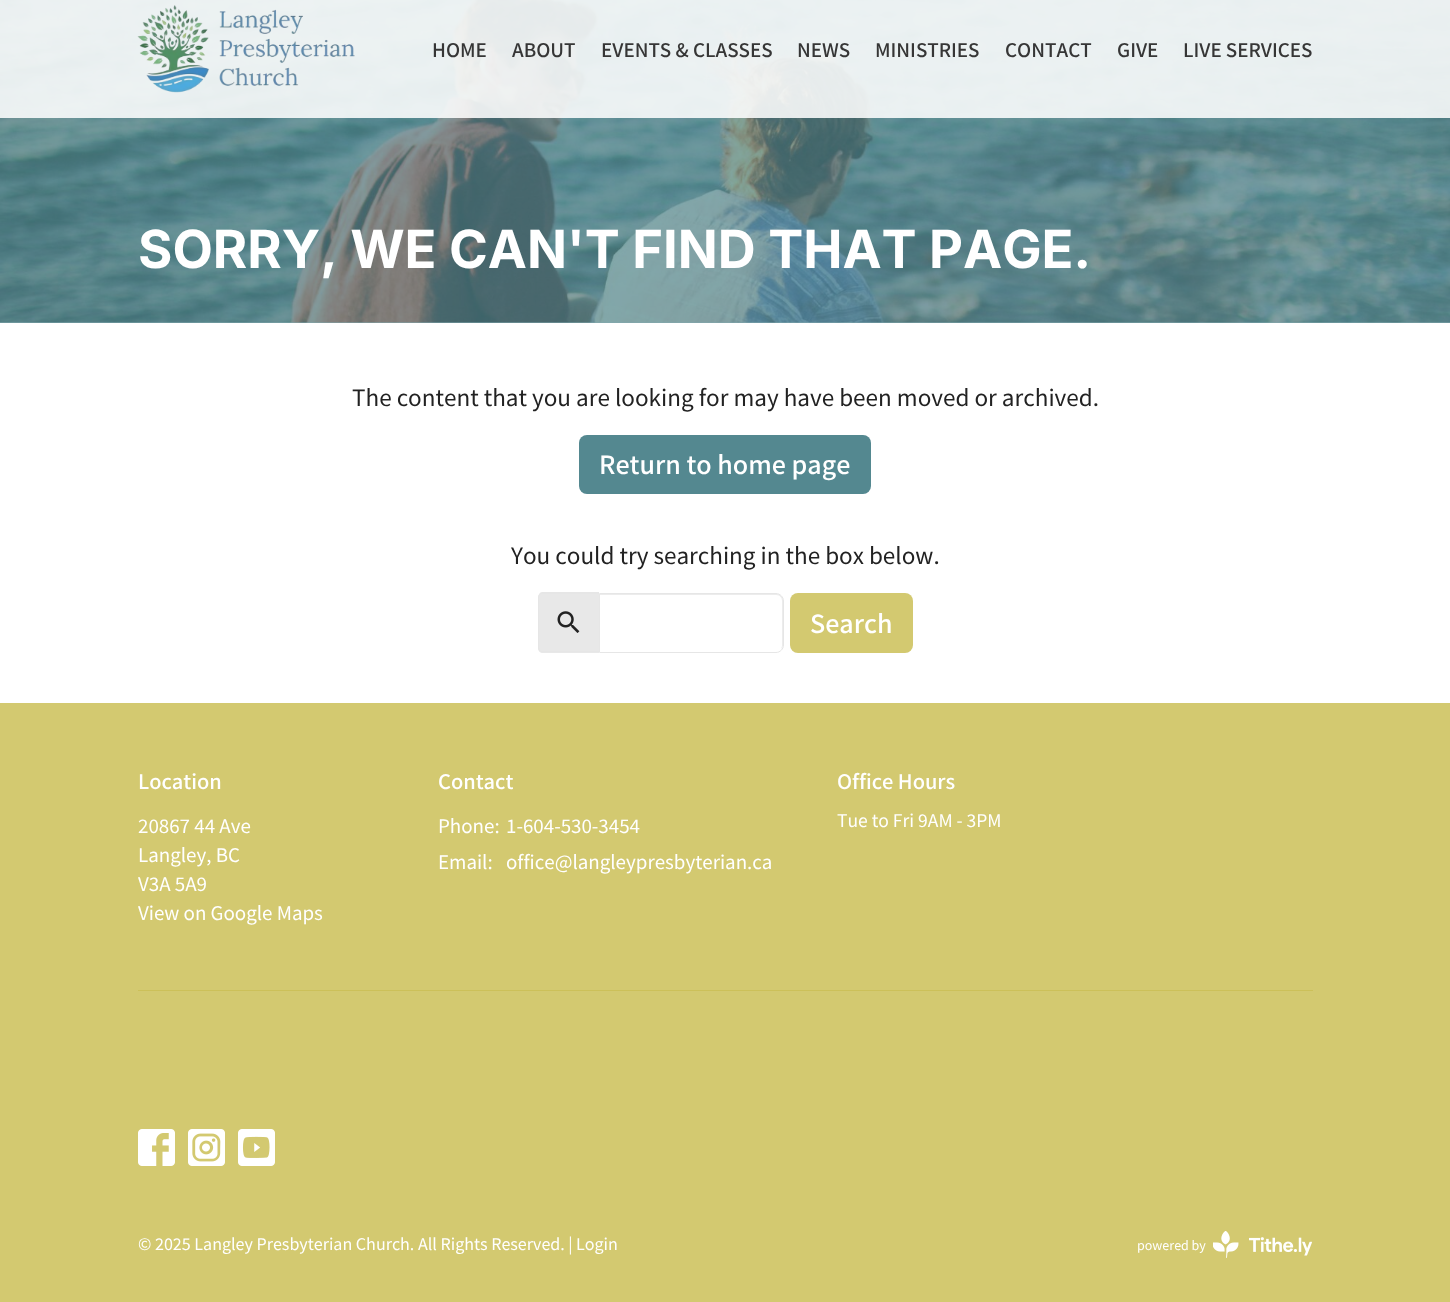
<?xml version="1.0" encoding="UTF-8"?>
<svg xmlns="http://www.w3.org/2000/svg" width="1450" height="1302">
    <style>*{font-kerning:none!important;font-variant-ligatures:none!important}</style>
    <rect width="100%" height="100%" fill="#FFFFFF"/>
    <rect x="0" y="322" width="1450" height="1" fill="#82A8AE"/>
    <image x="0" y="0" width="1450" height="323" href="img_02.png"/>
    <rect x="0" y="0" width="1450" height="118" fill="#FFFFFF" fill-opacity="0.87"/>
    <image x="137" y="5" width="218" height="88" href="img_01.png"/>
    <text x="432" y="57" font-family="Noto Sans JP" font-size="18.75" font-weight="500" fill="#363636">HOME</text>
    <text x="512" y="57" font-family="Noto Sans JP" font-size="18.75" font-weight="500" fill="#363636">ABOUT</text>
    <text x="601" y="57" font-family="Noto Sans JP" font-size="18.75" font-weight="500" fill="#363636">EVENTS &amp; CLASSES</text>
    <text x="797" y="57" font-family="Noto Sans JP" font-size="18.75" font-weight="500" fill="#363636">NEWS</text>
    <text x="875" y="57" font-family="Noto Sans JP" font-size="18.75" font-weight="500" fill="#363636">MINISTRIES</text>
    <text x="1005" y="57" font-family="Noto Sans JP" font-size="18.75" font-weight="500" fill="#363636">CONTACT</text>
    <text x="1117" y="57" font-family="Noto Sans JP" font-size="18.75" font-weight="500" fill="#363636">GIVE</text>
    <text x="1183" y="57" font-family="Noto Sans JP" font-size="18.75" font-weight="500" fill="#363636">LIVE SERVICES</text>
    <text x="138" y="268" font-family="Inter" font-size="52.5" font-weight="700" fill="#FFFFFF">SORRY, WE CAN'T FIND THAT</text>
    <text x="929" y="268" font-family="Inter" font-size="52.5" font-weight="700" fill="#FFFFFF">PAGE.</text>
    <text x="352" y="406" font-family="Noto Sans JP" font-size="22.5" fill="#222222">The content that you are looking for may have been moved or archived.</text>
    <rect x="579" y="435" width="292" height="59" rx="8" fill="#548890"/>
    <text x="599" y="474" font-family="Noto Sans JP" font-size="25" font-weight="500" fill="#FFFFFF">Return to home page</text>
    <text x="511" y="564" font-family="Noto Sans JP" font-size="22.5" fill="#222222">You could try searching in the box below.</text>
    <path d="M 543 593 H 599 V 653 H 543 C 540 653 538 651 538 648 V 598 C 538 595 540 593 543 593 Z" fill="#E8E8E8"/>
    <path d="M 542 592 H 599 V 652 H 542 C 540 652 538 650 538 648 V 598 C 538 595 540 592 542 592 Z M 542 594 H 599 V 651 H 542 C 540 651 539 650 539 648 V 598 C 539 595 540 594 542 594 Z" fill="#E6E6E6" fill-rule="evenodd"/>
    <image x="557" y="611" width="23" height="22" href="img_03.png"/>
    <path d="M 600 595 H 776 C 780 595 782 598 782 601 V 646 L 781 649 C 782 648 783 647 783 645 V 600 C 783 597 780 594 777 594 H 600 Z" fill="#ECECEC"/>
    <path d="M 599.5 593.5 H 776 C 780 593.5 783.5 597 783.5 601 V 645 C 783.5 649 780 652.5 776 652.5 H 599.5 Z" fill="none" stroke="#E6E6E6"/>
    <rect x="790" y="593" width="123" height="60" rx="8" fill="#D3C970"/>
    <text x="810" y="633" font-family="Noto Sans JP" font-size="25" font-weight="500" fill="#FFFFFF">Search</text>
    <rect x="0" y="703" width="1450" height="599" fill="#D3C970"/>
    <text x="138" y="789" font-family="Noto Sans JP" font-size="20" font-weight="500" fill="#FFFFFF">Location</text>
    <text font-family="Noto Sans JP" font-size="18.75" fill="#FFFFFF">
        <tspan x="138" y="833">20867 44 Ave</tspan>
        <tspan x="138" y="862">Langley, BC</tspan>
        <tspan x="138" y="891">V3A 5A9</tspan>
        <tspan x="138" y="920">View on Google Maps</tspan>
    </text>
    <text x="438" y="789" font-family="Noto Sans JP" font-size="20" font-weight="500" fill="#FFFFFF">Contact</text>
    <text x="438" y="833" font-family="Noto Sans JP" font-size="18.75" fill="#FFFFFF">Phone:</text>
    <text x="506" y="833" font-family="Noto Sans JP" font-size="18.75" fill="#FFFFFF">1-604-530-3454</text>
    <text x="438" y="869" font-family="Noto Sans JP" font-size="18.75" fill="#FFFFFF">Email:</text>
    <text x="506" y="869" font-family="Noto Sans JP" font-size="18.75" fill="#FFFFFF">office@langleypresbyterian.ca</text>
    <text x="837" y="789" font-family="Noto Sans JP" font-size="20" font-weight="500" fill="#FFFFFF">Office Hours</text>
    <text x="837" y="827" font-family="Noto Sans JP" font-size="17.5" fill="#FFFFFF">Tue to Fri 9AM - 3PM</text>
    <rect x="138" y="990" width="1175" height="1" fill="#CCC059"/>
    <image x="138" y="1129" width="37" height="37" href="img_04.png"/>
    <image x="188" y="1129" width="37" height="37" href="img_05.png"/>
    <image x="238" y="1129" width="37" height="37" href="img_06.png"/>
    <text x="138" y="1250" font-family="Noto Sans JP" font-size="16.1" fill="#FFFFFF">© 2025 Langley Presbyterian Church. All Rights Reserved. |</text>
    <text x="576" y="1250" font-family="Noto Sans JP" font-size="16.1" fill="#FFFFFF">Login</text>
    <text x="1137" y="1250" font-family="Noto Sans JP" font-size="12.5" fill="#FFFFFF">powered by</text>
    <image x="1213" y="1231" width="99" height="27" href="img_07.png"/>
</svg>
